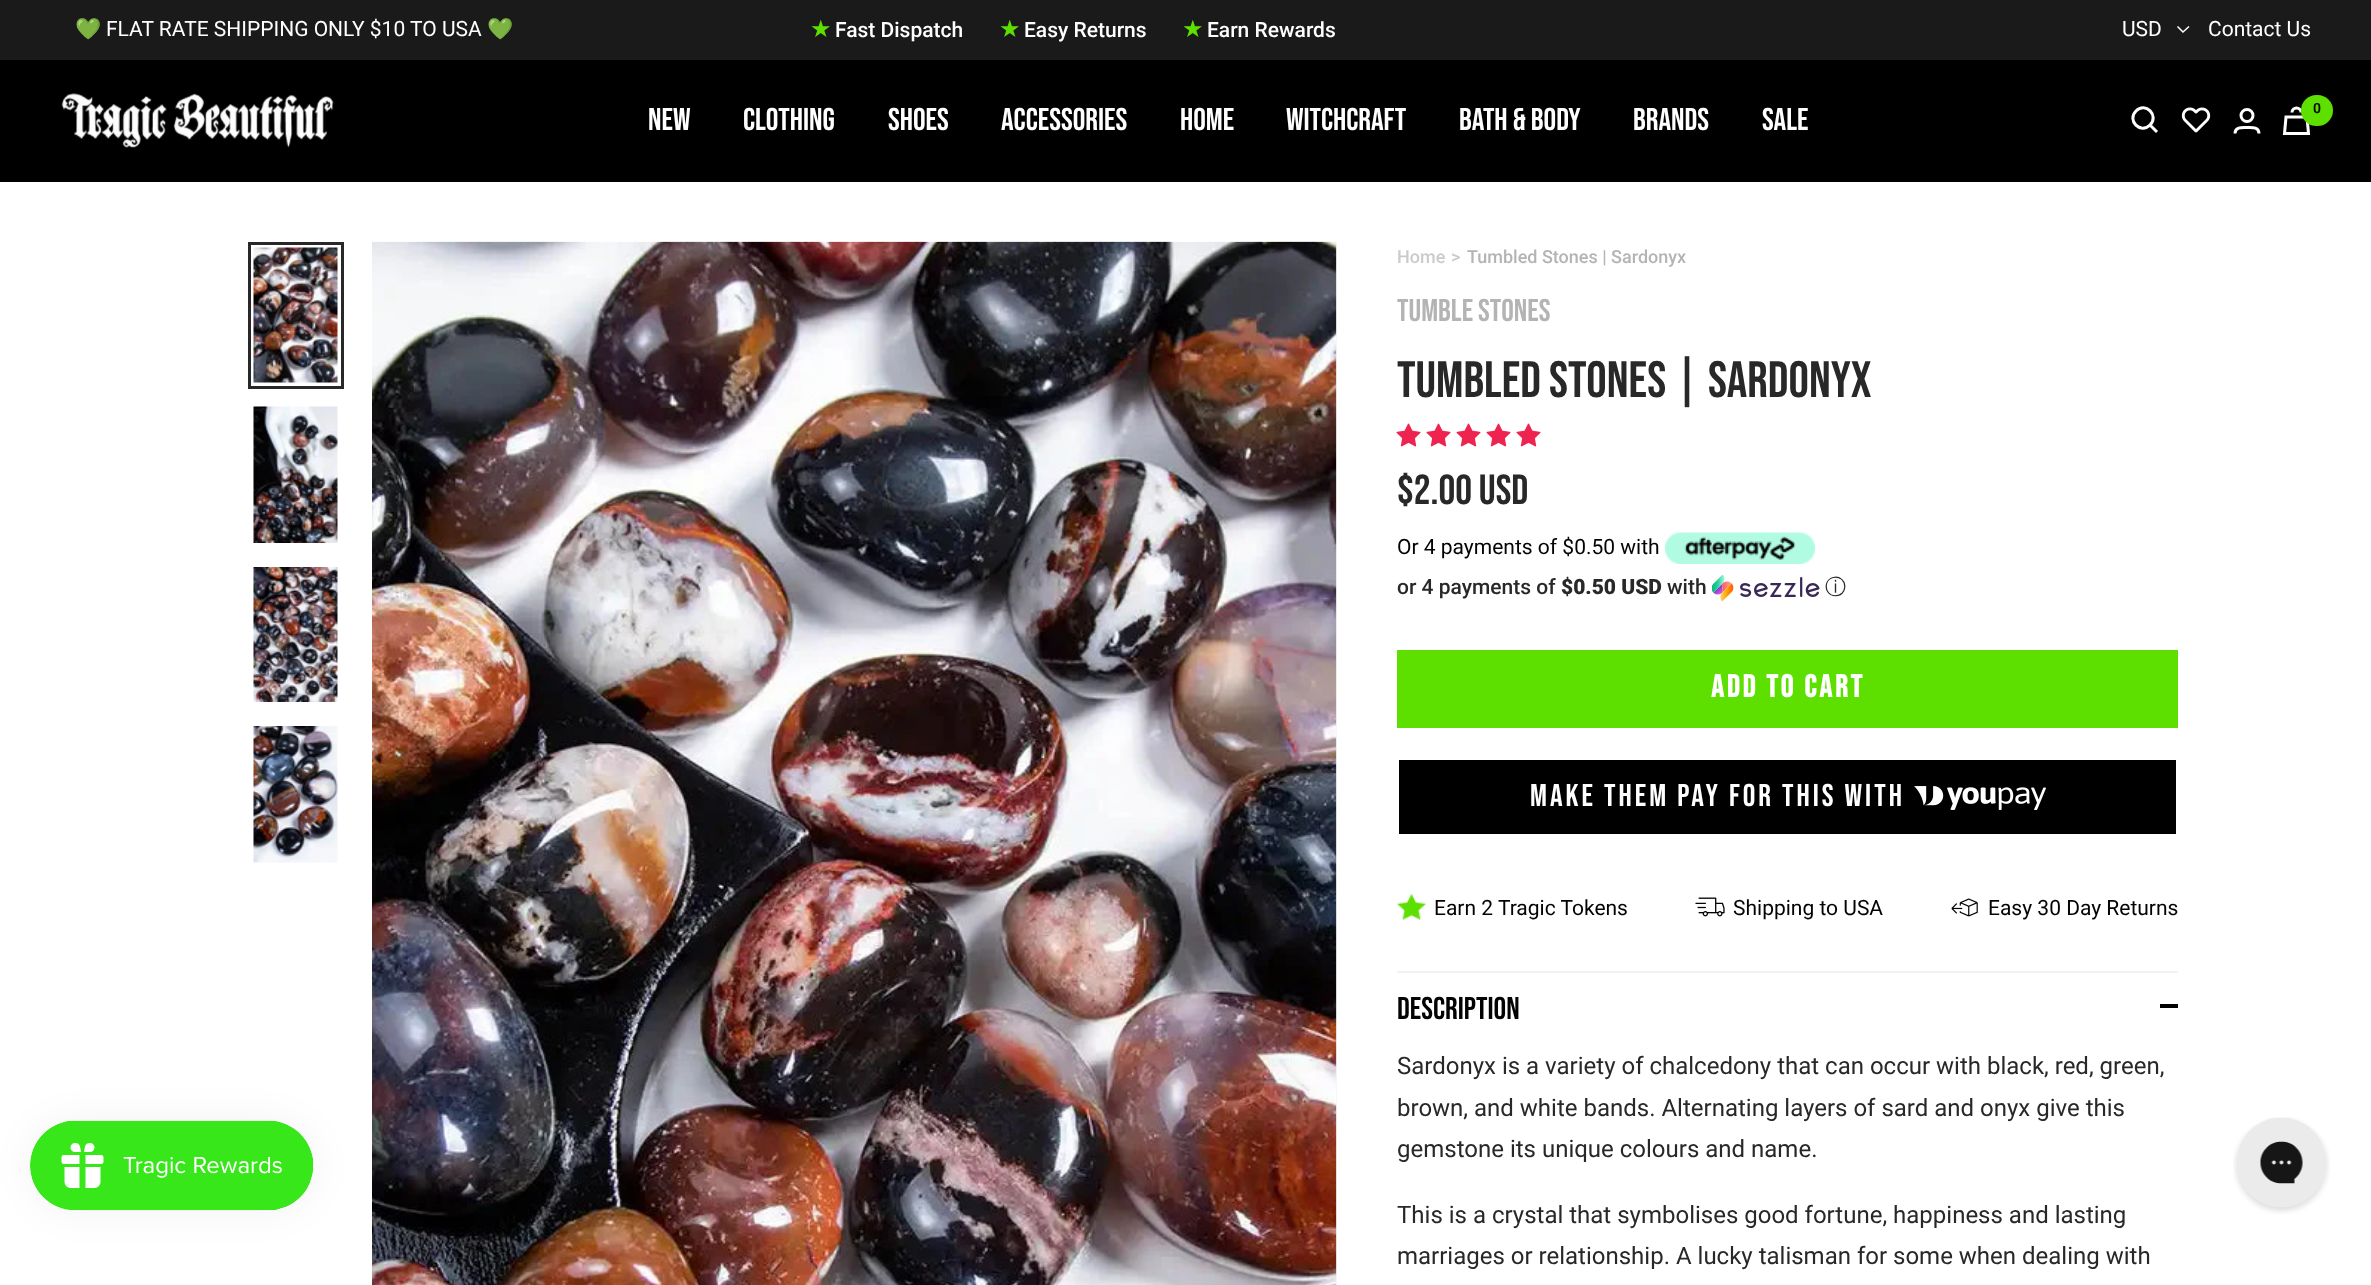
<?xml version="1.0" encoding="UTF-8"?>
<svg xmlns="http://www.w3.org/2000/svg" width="2371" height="1285">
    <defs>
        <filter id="blur1" x="-50%" y="-200%" width="200%" height="500%"><feGaussianBlur stdDeviation="19"/></filter>
    </defs>
    <rect width="100%" height="100%" fill="#FFFFFF"/>
    <rect x="0" y="0" width="2371" height="60" fill="#1A1A1A"/>
    <text x="75" y="36" font-family="Noto Color Emoji" font-size="21" fill="#FFFFFF">💚</text>
    <text x="106" y="36" font-family="Roboto" font-size="21" fill="#FFFFFF">FLAT RATE SHIPPING ONLY $10 TO USA</text>
    <text x="487" y="36" font-family="Noto Color Emoji" font-size="21" fill="#FFFFFF">💚</text>
    <text x="810" y="37" font-family="DejaVu Sans" font-size="24" fill="#5DE000">★</text>
    <text x="835" y="37" font-family="Roboto" font-size="21" font-weight="500" fill="#FFFFFF">Fast Dispatch</text>
    <text x="999" y="37" font-family="DejaVu Sans" font-size="24" fill="#5DE000">★</text>
    <text x="1024" y="37" font-family="Roboto" font-size="21" font-weight="500" fill="#FFFFFF">Easy Returns</text>
    <text x="1182" y="37" font-family="DejaVu Sans" font-size="24" fill="#5DE000">★</text>
    <text x="1207" y="37" font-family="Roboto" font-size="21" font-weight="500" fill="#FFFFFF">Earn Rewards</text>
    <text x="2122" y="36" font-family="Roboto" font-size="21" fill="#FFFFFF">USD</text>
    <path d="M 2177.5 26.5 L 2183 32 L 2189 26.5" fill="none" stroke="#FFFFFF" stroke-width="1.5"/>
    <text x="2208" y="36" font-family="Roboto" font-size="21" fill="#FFFFFF">Contact Us</text>
    <rect x="0" y="60" width="2371" height="122" fill="#000000"/>
    <image x="60" y="93" width="274" height="55" href="img_01.png"/>
    <text x="648" y="130" font-family="Bebas Neue" font-size="31.5" fill="#FFFFFF">New</text>
    <text x="743" y="130" font-family="Bebas Neue" font-size="31.5" fill="#FFFFFF">Clothing</text>
    <text x="888" y="130" font-family="Bebas Neue" font-size="31.5" fill="#FFFFFF">Shoes</text>
    <text x="1001" y="130" font-family="Bebas Neue" font-size="31.5" fill="#FFFFFF">Accessories</text>
    <text x="1180" y="130" font-family="Bebas Neue" font-size="31.5" fill="#FFFFFF">Home</text>
    <text x="1286" y="130" font-family="Bebas Neue" font-size="31.5" fill="#FFFFFF">Witchcraft</text>
    <text x="1459" y="130" font-family="Bebas Neue" font-size="31.5" fill="#FFFFFF">Bath &amp; Body</text>
    <text x="1633" y="130" font-family="Bebas Neue" font-size="31.5" fill="#FFFFFF">Brands</text>
    <text x="1762" y="130" font-family="Bebas Neue" font-size="31.5" fill="#FFFFFF">Sale</text>
    <path d="M 2150 125 C 2159.5 115.5 2145.5 101.5 2136 111 C 2126.5 120.5 2140.5 134.5 2150 125 Z M 2150 125 L 2157 132" fill="none" stroke="#FFFFFF" stroke-width="3"/>
    <image x="2181" y="107" width="30" height="26" href="img_02.png"/>
    <circle cx="2247" cy="115.5" r="6" fill="none" stroke="#FFFFFF" stroke-width="3"/>
    <path d="M 2235 133.5 C 2235 126.5 2242.5 127.5 2247 127.5 C 2251.5 127.5 2259 126.5 2259 133.5" fill="none" stroke="#FFFFFF" stroke-width="3"/>
    <path d="M 2286 117 H 2307 L 2308.5 133.5 H 2284.5 Z M 2301 112.5 C 2301 106.5 2292 106.5 2292 112.5" fill="none" stroke="#FFFFFF" stroke-width="3"/>
    <rect x="2301" y="95" width="32" height="31" rx="15.5" fill="#5DE000"/>
    <text x="2313" y="113" font-family="Roboto" font-size="14" font-weight="600" fill="#030303">0</text>
    <rect x="30" y="1121" width="284" height="90" rx="45" fill="#000000" fill-opacity="0.05" filter="url(#blur1)"/>
    <image x="30" y="1120" width="284" height="91" href="img_03.png"/>
    <image x="253" y="247" width="85" height="136" href="img_04.png"/>
    <rect x="249.5" y="243.5" width="93" height="144" fill="none" stroke="#282828" stroke-width="3"/>
    <image x="253" y="406" width="85" height="137" href="img_05.png"/>
    <image x="253" y="567" width="85" height="135" href="img_06.png"/>
    <image x="253" y="726" width="85" height="137" href="img_07.png"/>
    <rect x="1336" y="242" width="1" height="1043" fill="#F5F5F5"/>
    <image x="372" y="241" width="965" height="1044" href="img_08.png"/>
    <text x="1397" y="263" font-family="Roboto" font-size="18" font-weight="500" fill="#CBCBCB">Home</text>
    <text x="1451" y="263" font-family="Roboto" font-size="18" font-weight="500" fill="#CBCBCB">&gt;</text>
    <text x="1467" y="263" font-family="Roboto" font-size="18" font-weight="500" fill="#B4B4B4">Tumbled Stones | Sardonyx</text>
    <text x="1397" y="321" font-family="Bebas Neue" font-size="31.5" fill="#B4B4B4">TUMBLE STONES</text>
    <text x="1397" y="397" font-family="Bebas Neue" font-size="51" fill="#282828">TUMBLED STONES | SARDONYX</text>
    <image x="1396" y="423" width="25" height="24" href="img_09.png"/>
    <image x="1426" y="423" width="25" height="24" href="img_09.png"/>
    <image x="1456" y="423" width="25" height="24" href="img_09.png"/>
    <image x="1486" y="423" width="25" height="24" href="img_09.png"/>
    <image x="1516" y="423" width="25" height="24" href="img_09.png"/>
    <text x="1397" y="504" font-family="Bebas Neue" font-size="42" fill="#282828">$2.00 USD</text>
    <text x="1397" y="554" font-family="Roboto" font-size="21" fill="#030303">Or 4 payments of $0.50 with</text>
    <image x="1665" y="532" width="150" height="32" href="img_10.png"/>
    <text x="1397" y="594" font-family="Roboto" font-size="21" font-weight="500" fill="#282828">or 4 payments of</text>
    <text x="1561" y="594" font-family="Roboto" font-size="21" font-weight="900" fill="#282828">$0.50 USD</text>
    <text x="1667" y="594" font-family="Roboto" font-size="21" font-weight="500" fill="#282828">with</text>
    <image x="1712" y="575" width="108" height="27" href="img_11.png"/>
    <text x="1825" y="594" font-family="WenQuanYi Zen Hei" font-size="21" font-weight="500" fill="#282828">ⓘ</text>
    <rect x="1397" y="650" width="781" height="78" fill="#5DE000"/>
    <text x="1711" y="697" font-family="Bebas Neue" font-size="31.5" font-weight="700" letter-spacing="3" fill="#FFFFFF">ADD TO CART</text>
    <rect x="1399" y="760" width="777" height="74" fill="#000000"/>
    <text x="1530" y="806" font-family="Bebas Neue" font-size="31.5" letter-spacing="3" fill="#FFFFFF">MAKE THEM PAY FOR THIS WITH</text>
    <image x="1914" y="786" width="132" height="24" href="img_12.png"/>
    <image x="1396" y="894" width="31" height="26" href="img_13.png"/>
    <text x="1434" y="915" font-family="Roboto" font-size="21" fill="#030303">Earn 2 Tragic Tokens</text>
    <image x="1695" y="897" width="30" height="20" href="img_14.png"/>
    <text x="1733" y="915" font-family="Roboto" font-size="21" fill="#030303">Shipping to USA</text>
    <image x="1951" y="898" width="27" height="19" href="img_15.png"/>
    <text x="1988" y="915" font-family="Roboto" font-size="21" fill="#030303">Easy 30 Day Returns</text>
    <rect x="1397" y="971" width="781" height="2" fill="#F2F2F2"/>
    <text x="1397" y="1019" font-family="Bebas Neue" font-size="31.5" fill="#030303">Description</text>
    <rect x="2160" y="1004" width="18" height="4" fill="#000000"/>
    <text font-family="Roboto" font-size="24" fill="#282828">
        <tspan x="1397" y="1074">Sardonyx is a variety of chalcedony that can occur with black, red, green,</tspan>
        <tspan x="1397" y="1116">brown, and white bands. Alternating layers of sard and onyx give this</tspan>
        <tspan x="1397" y="1157">gemstone its unique colours and name.</tspan>
    </text>
    <text font-family="Roboto" font-size="24" fill="#282828">
        <tspan x="1397" y="1223">This is a crystal that symbolises good fortune, happiness and lasting</tspan>
        <tspan x="1397" y="1264">marriages or relationship. A lucky talisman for some when dealing with</tspan>
    </text>
    <image x="2233" y="1117" width="97" height="97" href="img_16.png"/>
</svg>
